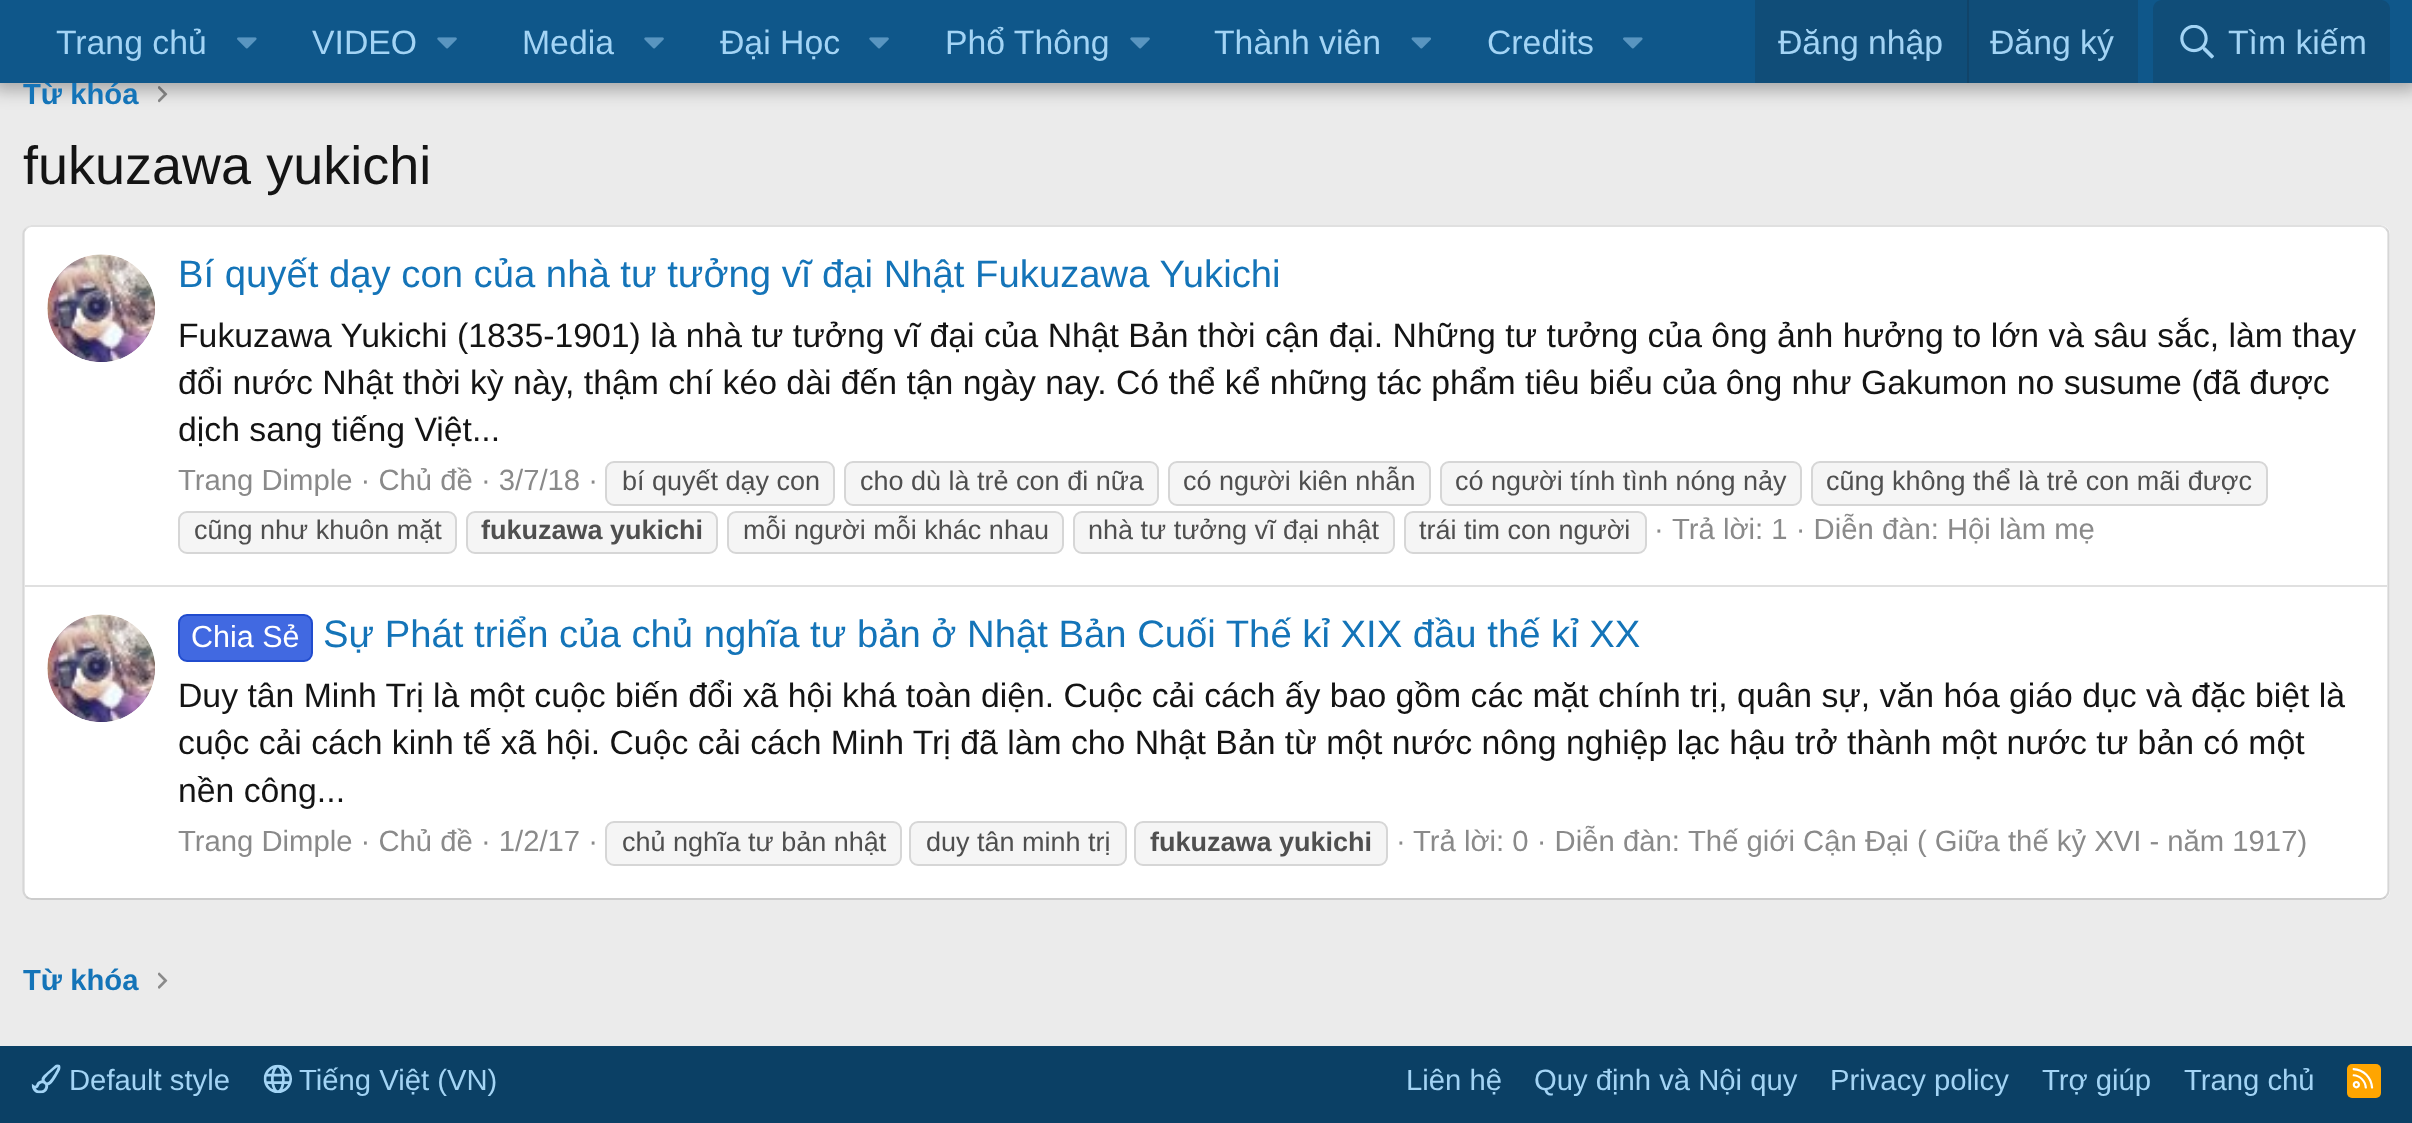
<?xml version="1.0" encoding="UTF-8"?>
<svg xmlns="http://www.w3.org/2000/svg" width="2412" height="1123">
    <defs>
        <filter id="blur1" x="-50%" y="-200%" width="200%" height="500%"><feGaussianBlur stdDeviation="9"/></filter>
    </defs>
    <rect width="100%" height="100%" fill="#EBEBEB"/>
    <image x="158" y="86" width="10" height="17" href="img_05.png"/>
    <rect x="-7" y="-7" width="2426" height="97" fill="#000000" fill-opacity="0.3" filter="url(#blur1)"/>
    <text x="23" y="104" font-family="Liberation Sans" font-size="29.25" font-weight="700" fill="#1474B8">Từ khóa</text>
    <rect x="0" y="0" width="2412" height="83" fill="#0F578A"/>
    <text x="56" y="54" font-family="Liberation Sans" font-size="33.75" fill="#A3D4F5">Trang chủ</text>
    <image x="237" y="37" width="20" height="12" href="img_01.png"/>
    <text x="312" y="54" font-family="Liberation Sans" font-size="33.75" fill="#A3D4F5">VIDEO</text>
    <image x="437" y="37" width="20" height="12" href="img_02.png"/>
    <text x="522" y="54" font-family="Liberation Sans" font-size="33.75" fill="#A3D4F5">Media</text>
    <image x="644" y="37" width="20" height="12" href="img_02.png"/>
    <text x="720" y="54" font-family="Liberation Sans" font-size="33.75" fill="#A3D4F5">Đại Học</text>
    <image x="869" y="37" width="20" height="12" href="img_02.png"/>
    <text x="945" y="54" font-family="Liberation Sans" font-size="33.75" fill="#A3D4F5">Phổ Thông</text>
    <image x="1130" y="37" width="20" height="12" href="img_02.png"/>
    <text x="1214" y="54" font-family="Liberation Sans" font-size="33.75" fill="#A3D4F5">Thành viên</text>
    <image x="1411" y="37" width="20" height="12" href="img_03.png"/>
    <text x="1487" y="54" font-family="Liberation Sans" font-size="33.75" fill="#A3D4F5">Credits</text>
    <image x="1623" y="37" width="20" height="12" href="img_01.png"/>
    <rect x="1755" y="0" width="383" height="83" fill="#104D78"/>
    <text x="1778" y="54" font-family="Liberation Sans" font-size="33.75" fill="#A3D4F5">Đăng nhập</text>
    <rect x="1967" y="0" width="2" height="83" fill="#114469"/>
    <text x="1990" y="54" font-family="Liberation Sans" font-size="33.75" fill="#A3D4F5">Đăng ký</text>
    <path d="M 2162 0 H 2381 C 2386 0 2390 4 2390 9 V 83 H 2153 V 9 C 2153 4 2157 0 2162 0 Z" fill="#104D78"/>
    <image x="2180" y="25" width="34" height="34" href="img_04.png"/>
    <text x="2228" y="54" font-family="Liberation Sans" font-size="33.75" fill="#A3D4F5">Tìm kiếm</text>
    <text x="23" y="184" font-family="Liberation Sans" font-size="54" fill="#141414">fukuzawa yukichi</text>
    <rect x="23" y="225" width="2367" height="675" rx="9" fill="#FFFFFF"/>
    <path d="M 26 228.5 C 27.5 227 29.5 226 31.5 226 H 2380.5 C 2382.5 226 2384.5 227 2386 228.5" fill="none" stroke="#E0E0E0" stroke-width="2.2"/>
    <path d="M 2386 228.5 C 2387.5 230 2388.5 232 2388.5 234 V 891 C 2388.5 893 2387.5 895 2386 896.5" fill="none" stroke="#D6D6D6" stroke-width="2.2"/>
    <path d="M 2386 896.5 C 2384.5 898 2382.5 899 2380.5 899 H 31.5 C 29.5 899 27.5 898 26 896.5" fill="none" stroke="#CCCCCC" stroke-width="2.2"/>
    <path d="M 26 896.5 C 24.5 895 23.5 893 23.5 891 V 234 C 23.5 232 24.5 230 26 228.5" fill="none" stroke="#D6D6D6" stroke-width="2.2"/>
    <image x="47" y="254" width="108" height="108" href="img_06.png"/>
    <text x="178" y="287" font-family="Liberation Sans" font-size="38.25" fill="#1474B8">Bí quyết dạy con của nhà tư tưởng vĩ đại Nhật Fukuzawa Yukichi</text>
    <text font-family="Liberation Sans" font-size="33.75" fill="#141414">
        <tspan x="178" y="347">Fukuzawa Yukichi (1835-1901) là nhà tư tưởng vĩ đại của Nhật Bản thời cận đại. Những tư tưởng của ông ảnh hưởng to lớn và sâu sắc, làm thay</tspan>
        <tspan x="178" y="394">đổi nước Nhật thời kỳ này, thậm chí kéo dài đến tận ngày nay. Có thể kể những tác phẩm tiêu biểu của ông như Gakumon no susume (đã được</tspan>
        <tspan x="178" y="441">dịch sang tiếng Việt...</tspan>
    </text>
    <rect x="606" y="462" width="228" height="43" rx="8" fill="#F5F5F5" stroke="#D6D6D6" stroke-width="2"/>
    <text x="622" y="490" font-family="Liberation Sans" font-size="27" fill="#4F4F4F">bí quyết dạy con</text>
    <rect x="845" y="462" width="313" height="43" rx="8" fill="#F5F5F5" stroke="#D6D6D6" stroke-width="2"/>
    <text x="860" y="490" font-family="Liberation Sans" font-size="27" fill="#4F4F4F">cho dù là trẻ con đi nữa</text>
    <rect x="1169" y="462" width="261" height="43" rx="8" fill="#F5F5F5" stroke="#D6D6D6" stroke-width="2"/>
    <text x="1183" y="490" font-family="Liberation Sans" font-size="27" fill="#4F4F4F">có người kiên nhẫn</text>
    <rect x="1441" y="462" width="360" height="43" rx="8" fill="#F5F5F5" stroke="#D6D6D6" stroke-width="2"/>
    <text x="1455" y="490" font-family="Liberation Sans" font-size="27" fill="#4F4F4F">có người tính tình nóng nảy</text>
    <rect x="1812" y="462" width="455" height="43" rx="8" fill="#F5F5F5" stroke="#D6D6D6" stroke-width="2"/>
    <text x="1826" y="490" font-family="Liberation Sans" font-size="27" fill="#4F4F4F">cũng không thể là trẻ con mãi được</text>
    <rect x="179" y="512" width="277" height="41" rx="8" fill="#F5F5F5" stroke="#D6D6D6" stroke-width="2"/>
    <text x="194" y="539" font-family="Liberation Sans" font-size="27" fill="#4F4F4F">cũng như khuôn mặt</text>
    <rect x="467" y="512" width="250" height="41" rx="8" fill="#F5F5F5" stroke="#D6D6D6" stroke-width="2"/>
    <text x="481" y="539" font-family="Liberation Sans" font-size="27" font-weight="700" fill="#4F4F4F">fukuzawa yukichi</text>
    <rect x="728" y="512" width="335" height="41" rx="8" fill="#F5F5F5" stroke="#D6D6D6" stroke-width="2"/>
    <text x="743" y="539" font-family="Liberation Sans" font-size="27" fill="#4F4F4F">mỗi người mỗi khác nhau</text>
    <rect x="1074" y="512" width="320" height="41" rx="8" fill="#F5F5F5" stroke="#D6D6D6" stroke-width="2"/>
    <text x="1088" y="539" font-family="Liberation Sans" font-size="27" fill="#4F4F4F">nhà tư tưởng vĩ đại nhật</text>
    <rect x="1405" y="512" width="241" height="41" rx="8" fill="#F5F5F5" stroke="#D6D6D6" stroke-width="2"/>
    <text x="1419" y="539" font-family="Liberation Sans" font-size="27" fill="#4F4F4F">trái tim con người</text>
    <text x="178" y="490" font-family="Liberation Sans" font-size="29.25" fill="#8A8A8A">Trang Dimple · Chủ đề · 3/7/18 ·</text>
    <text x="1654" y="539" font-family="Liberation Sans" font-size="29.25" fill="#8A8A8A">·</text>
    <text x="1672" y="539" font-family="Liberation Sans" font-size="29.25" fill="#8A8A8A">Trả lời: 1 · Diễn đàn: Hội làm mẹ</text>
    <rect x="25" y="585" width="2362" height="2" fill="#E0E0E0"/>
    <image x="47" y="614" width="108" height="108" href="img_07.png"/>
    <rect x="179" y="615" width="133" height="46" rx="8" fill="#4169E1" stroke="#214CCE" stroke-width="2"/>
    <text x="191" y="647" font-family="Liberation Sans" font-size="30.5" fill="#FFFFFF">Chia Sẻ</text>
    <text x="323" y="647" font-family="Liberation Sans" font-size="38.25" fill="#1474B8">Sự Phát triển của chủ nghĩa tư bản ở Nhật Bản Cuối Thế kỉ XIX đầu thế kỉ XX</text>
    <text font-family="Liberation Sans" font-size="33.75" fill="#141414">
        <tspan x="178" y="707">Duy tân Minh Trị là một cuộc biến đổi xã hội khá toàn diện. Cuộc cải cách ấy bao gồm các mặt chính trị, quân sự, văn hóa giáo dục và đặc biệt là</tspan>
        <tspan x="178" y="754">cuộc cải cách kinh tế xã hội. Cuộc cải cách Minh Trị đã làm cho Nhật Bản từ một nước nông nghiệp lạc hậu trở thành một nước tư bản có một</tspan>
        <tspan x="178" y="802">nền công...</tspan>
    </text>
    <text x="178" y="851" font-family="Liberation Sans" font-size="29.25" fill="#8A8A8A">Trang Dimple · Chủ đề · 1/2/17 ·</text>
    <rect x="606" y="822" width="295" height="43" rx="8" fill="#F5F5F5" stroke="#D6D6D6" stroke-width="2"/>
    <text x="622" y="851" font-family="Liberation Sans" font-size="27" fill="#4F4F4F">chủ nghĩa tư bản nhật</text>
    <rect x="910" y="822" width="216" height="43" rx="8" fill="#F5F5F5" stroke="#D6D6D6" stroke-width="2"/>
    <text x="926" y="851" font-family="Liberation Sans" font-size="27" fill="#4F4F4F">duy tân minh trị</text>
    <rect x="1135" y="822" width="252" height="43" rx="8" fill="#F5F5F5" stroke="#D6D6D6" stroke-width="2"/>
    <text x="1150" y="851" font-family="Liberation Sans" font-size="27" font-weight="700" fill="#4F4F4F">fukuzawa yukichi</text>
    <text x="1396" y="851" font-family="Liberation Sans" font-size="29.25" fill="#8A8A8A">·</text>
    <text x="1413" y="851" font-family="Liberation Sans" font-size="29.25" fill="#8A8A8A">Trả lời: 0 · Diễn đàn:</text>
    <text x="1688" y="851" font-family="Liberation Sans" font-size="29.25" fill="#8A8A8A">Thế giới Cận Đại ( Giữa thế kỷ XVI - năm 1917)</text>
    <text x="23" y="990" font-family="Liberation Sans" font-size="29.25" font-weight="700" fill="#1474B8">Từ khóa</text>
    <image x="158" y="972" width="10" height="17" href="img_08.png"/>
    <rect x="0" y="1046" width="2412" height="77" fill="#0B4065"/>
    <image x="31" y="1064" width="30" height="30" href="img_09.png"/>
    <text x="69" y="1090" font-family="Liberation Sans" font-size="29.25" fill="#A3D4F5">Default style</text>
    <image x="263" y="1064" width="29" height="29" href="img_10.png"/>
    <text x="299" y="1090" font-family="Liberation Sans" font-size="29.25" fill="#A3D4F5">Tiếng Việt (VN)</text>
    <text x="1406" y="1090" font-family="Liberation Sans" font-size="29.25" fill="#A3D4F5">Liên hệ</text>
    <text x="1534" y="1090" font-family="Liberation Sans" font-size="29.25" fill="#A3D4F5">Quy định và Nội quy</text>
    <text x="1830" y="1090" font-family="Liberation Sans" font-size="29.25" fill="#A3D4F5">Privacy policy</text>
    <text x="2042" y="1090" font-family="Liberation Sans" font-size="29.25" fill="#A3D4F5">Trợ giúp</text>
    <text x="2184" y="1090" font-family="Liberation Sans" font-size="29.25" fill="#A3D4F5">Trang chủ</text>
    <rect x="2347" y="1064" width="34" height="34" rx="5" fill="#FFA500"/>
    <image x="2352" y="1068" width="22" height="21" href="img_11.png"/>
</svg>
